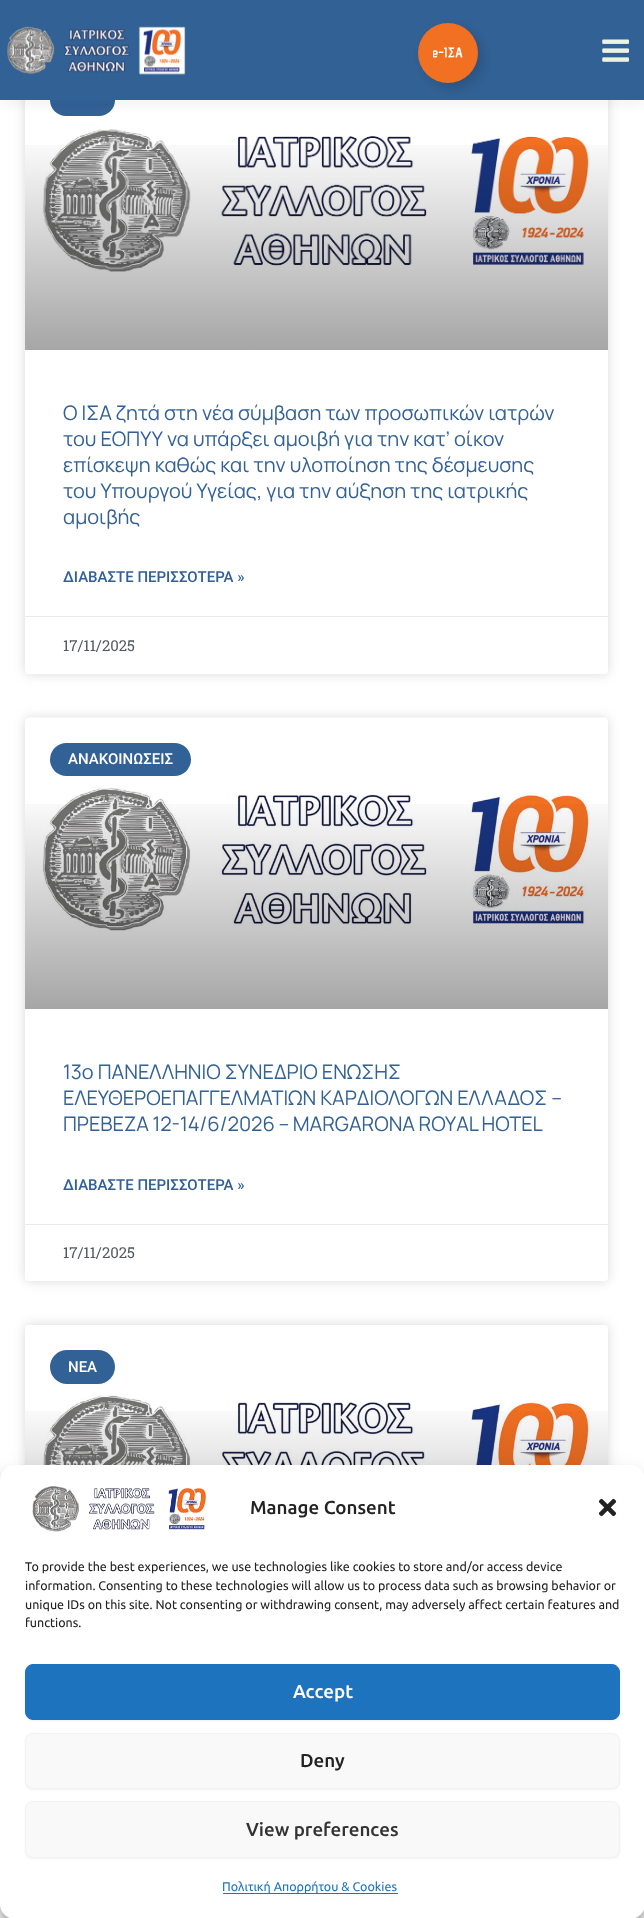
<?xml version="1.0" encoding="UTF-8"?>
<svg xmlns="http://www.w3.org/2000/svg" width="644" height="1918">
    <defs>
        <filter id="blur1" x="-50%" y="-200%" width="200%" height="500%"><feGaussianBlur stdDeviation="6"/></filter>
        <linearGradient id="g1" gradientUnits="userSpaceOnUse" x1="316" y1="350" x2="316" y2="59"><stop offset="0" stop-color="#000000" stop-opacity="0.35"/><stop offset="0.75" stop-color="#000000" stop-opacity="0"/></linearGradient>
        <linearGradient id="g2" gradientUnits="userSpaceOnUse" x1="316" y1="1009" x2="316" y2="718"><stop offset="0" stop-color="#000000" stop-opacity="0.35"/><stop offset="0.75" stop-color="#000000" stop-opacity="0"/></linearGradient>
        <linearGradient id="g3" gradientUnits="userSpaceOnUse" x1="316" y1="1616" x2="316" y2="1325"><stop offset="0" stop-color="#000000" stop-opacity="0.35"/><stop offset="0.75" stop-color="#000000" stop-opacity="0"/></linearGradient>
        <filter id="blur2" x="-50%" y="-200%" width="200%" height="500%"><feGaussianBlur stdDeviation="4"/></filter>
        <filter id="blur3" x="-50%" y="-200%" width="200%" height="500%"><feGaussianBlur stdDeviation="12.5"/></filter>
        <filter id="blur4" x="-50%" y="-200%" width="200%" height="500%"><feGaussianBlur stdDeviation="1"/></filter>
    </defs>
    <rect width="100%" height="100%" fill="#FFFFFF"/>
    <rect x="25" y="59" width="583" height="615" rx="4" fill="#000000" fill-opacity="0.15" filter="url(#blur1)"/>
    <rect x="25" y="59" width="583" height="615" rx="4" fill="#FFFFFF"/>
    <image x="25" y="100" width="582" height="172" href="img_04.png"/>
    <rect x="50" y="84" width="65" height="32" rx="16" fill="#326195"/>
    <rect x="0" y="3" width="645" height="100" fill="#243242" fill-opacity="0.07" filter="url(#blur1)"/>
    <rect x="0" y="0" width="644" height="100" fill="#326195"/>
    <rect x="423" y="28" width="60" height="60" rx="30" fill="#000000" fill-opacity="0.15" filter="url(#blur1)"/>
    <circle cx="448" cy="53" r="30" fill="#F17022"/>
    <image x="433" y="47" width="30" height="11" href="img_01.png"/>
    <image x="7" y="26" width="179" height="49" href="img_02.png"/>
    <image x="602" y="39" width="27" height="23" href="img_03.png"/>
    <rect x="25" y="145" width="583" height="205" fill="url(#g1)"/>
    <text font-family="Manrope" font-size="20" fill="#326195">
        <tspan x="63" y="420">Ο ΙΣΑ ζητά στη νέα σύμβαση των προσωπικών ιατρών</tspan>
        <tspan x="63" y="446">του ΕΟΠΥΥ να υπάρξει αμοιβή για την κατ’ οίκον</tspan>
        <tspan x="63" y="472">επίσκεψη καθώς και την υλοποίηση της δέσμευσης</tspan>
        <tspan x="63" y="498">του Υπουργού Υγείας, για την αύξηση της ιατρικής</tspan>
        <tspan x="63" y="524">αμοιβής</tspan>
    </text>
    <text x="63" y="582" font-family="Roboto" font-size="15" font-weight="500" fill="#326195">ΔΙΑΒΑΣΤΕ ΠΕΡΙΣΣΟΤΕΡΑ »</text>
    <rect x="25" y="616" width="583" height="1" fill="#EAEAEA"/>
    <text x="63" y="651" font-family="Roboto Slab" font-size="15" fill="#54595F">17/11/2025</text>
    <rect x="25" y="718" width="583" height="563" rx="4" fill="#000000" fill-opacity="0.15" filter="url(#blur1)"/>
    <rect x="25" y="718" width="583" height="563" rx="4" fill="#FFFFFF"/>
    <image x="29" y="717" width="578" height="214" href="img_05.png"/>
    <rect x="25" y="804" width="583" height="205" fill="url(#g2)"/>
    <rect x="50" y="743" width="141" height="33" rx="16.5" fill="#326195"/>
    <text x="68" y="764" font-family="Roboto" font-size="15" font-weight="500" fill="#FFFFFF">ΑΝΑΚΟΙΝΩΣΕΙΣ</text>
    <text font-family="Manrope" font-size="20" fill="#326195">
        <tspan x="63" y="1079">13o ΠΑΝΕΛΛΗΝΙΟ ΣΥΝΕΔΡΙΟ ΕΝΩΣΗΣ</tspan>
        <tspan x="63" y="1105">ΕΛΕΥΘΕΡΟΕΠΑΓΓΕΛΜΑΤΙΩΝ ΚΑΡΔΙΟΛΟΓΩΝ ΕΛΛΑΔΟΣ –</tspan>
        <tspan x="63" y="1131" word-spacing="-0.5">ΠΡΕΒΕΖΑ 12-14/6/2026 – MARGARONA ROYAL HOTEL</tspan>
    </text>
    <text x="63" y="1190" font-family="Roboto" font-size="15" font-weight="500" fill="#326195">ΔΙΑΒΑΣΤΕ ΠΕΡΙΣΣΟΤΕΡΑ »</text>
    <rect x="25" y="1224" width="583" height="1" fill="#EAEAEA"/>
    <text x="63" y="1258" font-family="Roboto Slab" font-size="15" fill="#54595F">17/11/2025</text>
    <rect x="25" y="1325" width="583" height="538" rx="4" fill="#000000" fill-opacity="0.15" filter="url(#blur1)"/>
    <rect x="25" y="1325" width="583" height="538" rx="4" fill="#FFFFFF"/>
    <image x="25" y="1325" width="566" height="140" href="img_06.png"/>
    <rect x="25" y="1411" width="583" height="54" fill="url(#g3)"/>
    <rect x="50" y="1350" width="65" height="34" rx="17" fill="#326195"/>
    <text x="68" y="1372" font-family="Roboto" font-size="15" font-weight="500" fill="#FFFFFF">ΝΕΑ</text>
    <rect x="0" y="1473" width="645" height="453" rx="15" fill="#000000" fill-opacity="0.23" filter="url(#blur2)"/>
    <rect x="0" y="1478" width="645" height="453" rx="15" fill="#000000" fill-opacity="0.19" filter="url(#blur3)"/>
    <rect x="0" y="1465" width="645" height="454" rx="15" fill="#FFFFFF"/>
    <image x="32" y="1486" width="174" height="46" href="img_07.png"/>
    <text x="250" y="1514" font-family="Ubuntu" font-size="18.75" font-weight="500" fill="#222222">Manage Consent</text>
    <image x="598" y="1498" width="19" height="19" href="img_08.png"/>
    <text font-family="Ubuntu" font-size="12.5" fill="#222222">
        <tspan x="25" y="1571">To provide the best experiences, we use technologies like cookies to store and/or access device</tspan>
        <tspan x="25" y="1590">information. Consenting to these technologies will allow us to process data such as browsing behavior or</tspan>
        <tspan x="25" y="1609">unique IDs on this site. Not consenting or withdrawing consent, may adversely affect certain features and</tspan>
        <tspan x="25" y="1627">functions.</tspan>
    </text>
    <rect x="25" y="1665" width="595" height="56" rx="8" fill="#000000" fill-opacity="0.05" filter="url(#blur4)"/>
    <rect x="25.5" y="1664.5" width="594" height="55" rx="7.5" fill="#1E73BE" stroke="#1E73BE"/>
    <text x="293" y="1698" font-family="Ubuntu" font-size="18.75" font-weight="500" fill="#FFFFFF">Accept</text>
    <rect x="25" y="1734" width="595" height="56" rx="8" fill="#000000" fill-opacity="0.05" filter="url(#blur4)"/>
    <rect x="25.5" y="1733.5" width="594" height="55" rx="7.5" fill="#F9F9F9" stroke="#F2F2F2"/>
    <text x="300" y="1767" font-family="Ubuntu" font-size="18.75" font-weight="500" fill="#222222">Deny</text>
    <rect x="25" y="1803" width="595" height="56" rx="8" fill="#000000" fill-opacity="0.05" filter="url(#blur4)"/>
    <rect x="25.5" y="1801.5" width="594" height="56" rx="7.5" fill="#F9F9F9" stroke="#F2F2F2"/>
    <text x="246" y="1836" font-family="Ubuntu" font-size="18.75" font-weight="500" fill="#333333">View preferences</text>
    <rect x="223" y="1893" width="175" height="1" fill="#1E73BE"/>
    <text x="222" y="1891" font-family="Ubuntu" font-size="12.5" fill="#1E73BE">Πολιτική Απορρήτου &amp; Cookies</text>
</svg>
